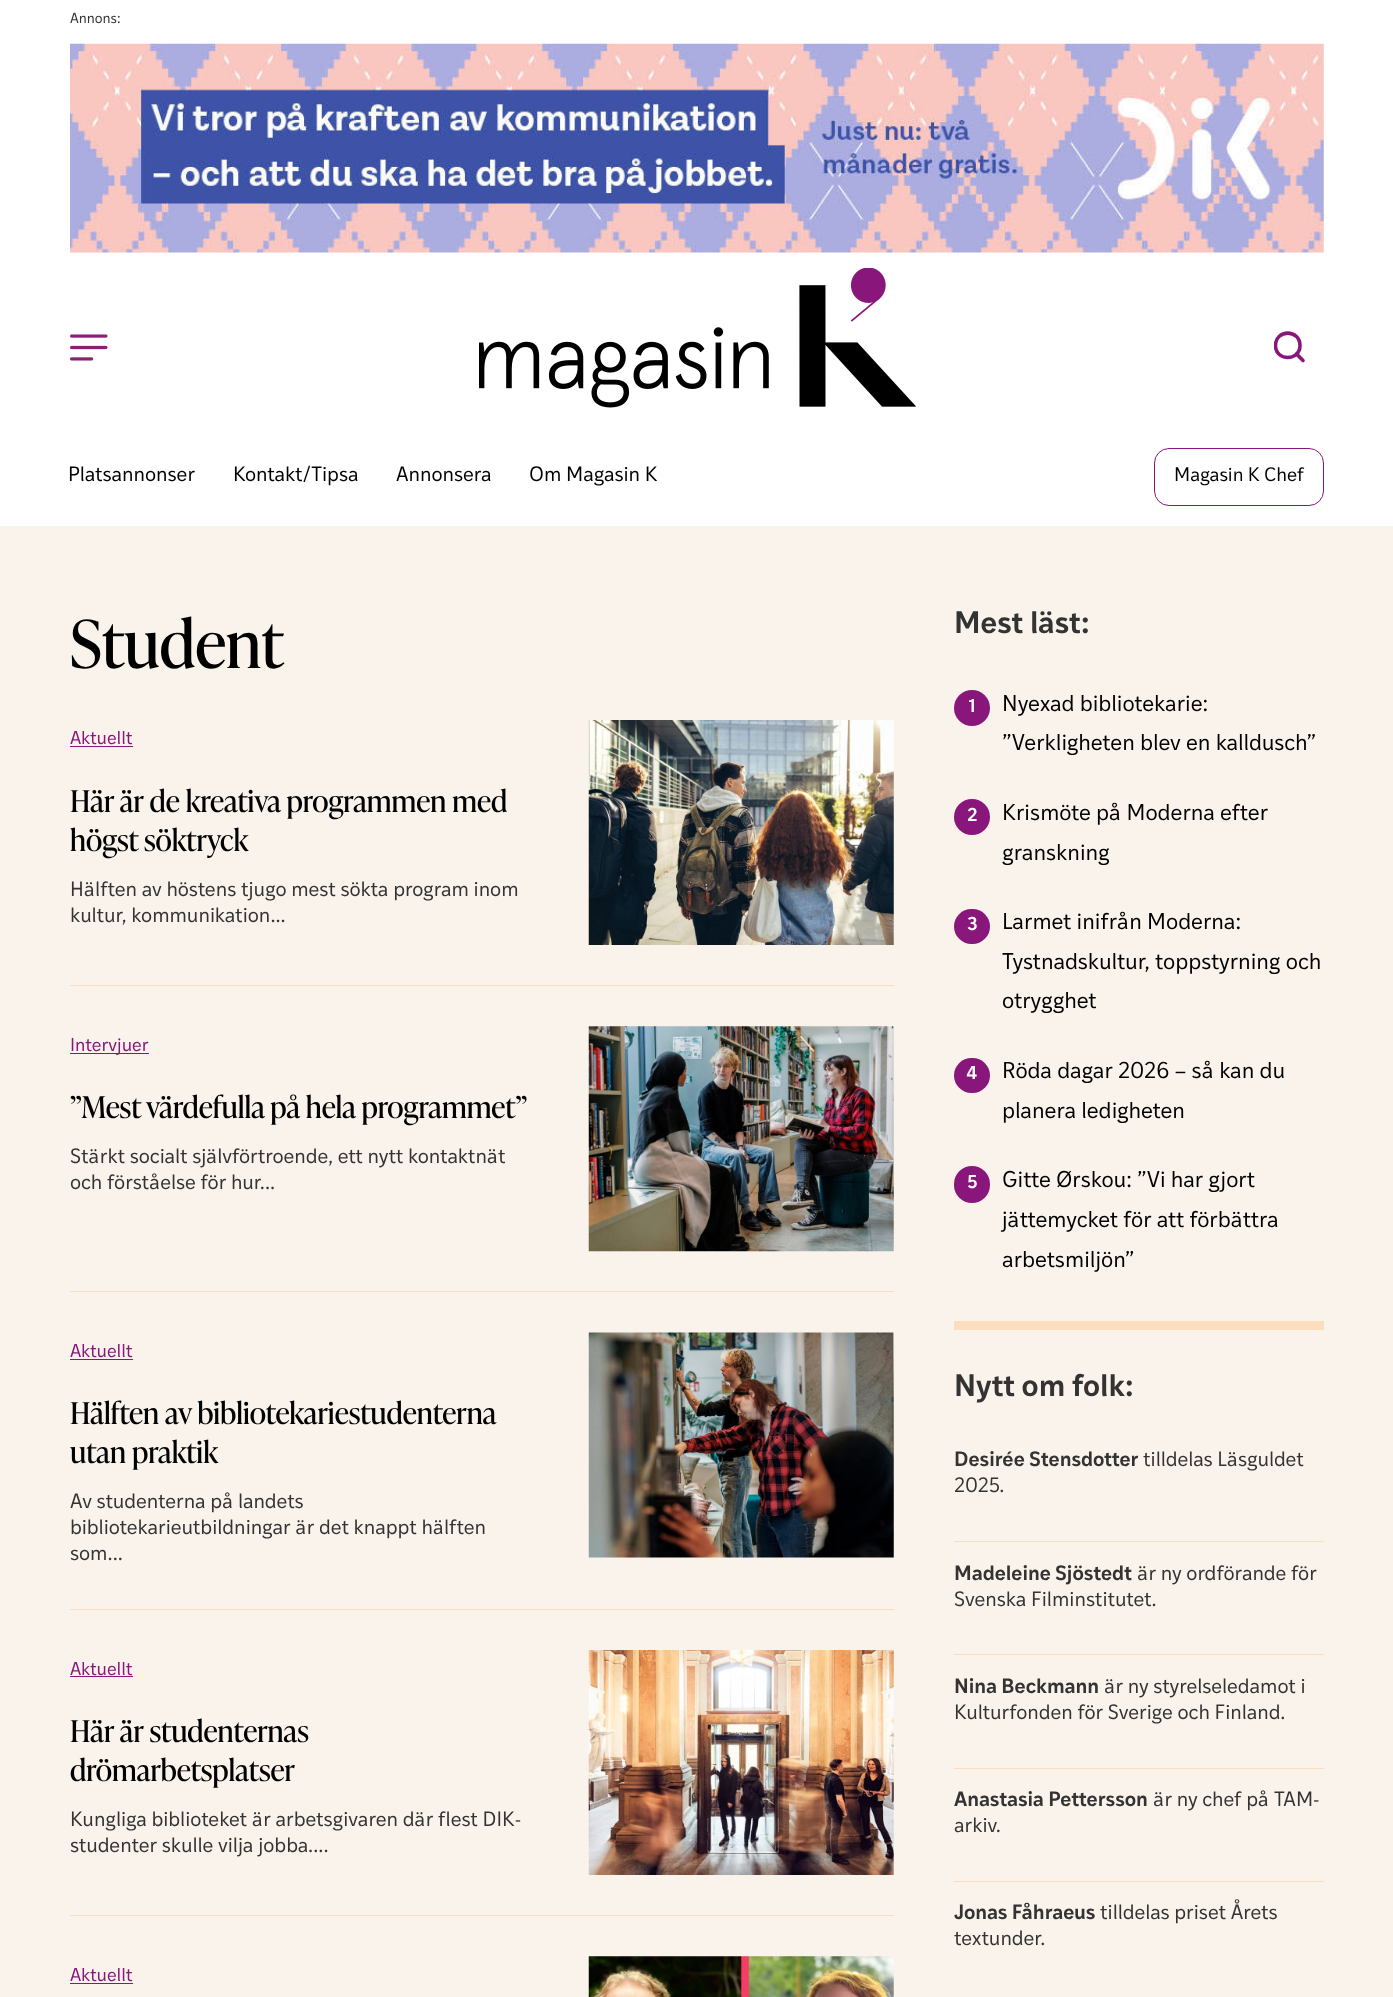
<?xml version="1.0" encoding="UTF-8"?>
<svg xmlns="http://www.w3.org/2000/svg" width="1393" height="1997">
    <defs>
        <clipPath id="clip1"><rect x="1274" y="331" width="31" height="32"/></clipPath>
    </defs>
    <rect width="100%" height="100%" fill="#FAF3EC"/>
    <rect x="0" y="0" width="1393" height="526" fill="#FFFFFF"/>
    <text x="70" y="23" font-family="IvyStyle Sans" font-size="14" fill="#333333">Annons:</text>
    <image x="70" y="43" width="1254" height="210" href="img_01.png"/>
    <image x="70" y="334" width="38" height="27" href="img_02.png"/>
    <image x="479" y="268" width="437" height="140" href="img_03.png"/>
    <g clip-path="url(#clip1)">
        <path d="M 1300 345.5 C 1300 361.5 1275.5 361.5 1275.5 345.5 C 1275.5 329 1300 329 1300 345.5 Z" fill="none" stroke="#88167B" stroke-width="3.6" stroke-linecap="round" stroke-linejoin="round"/>
    </g>
    <path d="M 1303 360.5 L 1296.5 354" fill="none" stroke="#88167B" stroke-width="3.6" stroke-linecap="round" stroke-linejoin="round"/>
    <text x="68" y="481" font-family="IvyStyle Sans" font-size="20" fill="#000000">Platsannonser</text>
    <text x="233" y="481" font-family="IvyStyle Sans" font-size="20" fill="#000000">Kontakt/Tipsa</text>
    <text x="396" y="481" font-family="IvyStyle Sans" font-size="20" fill="#000000">Annonsera</text>
    <text x="529" y="481" font-family="IvyStyle Sans" font-size="20" fill="#000000">Om Magasin K</text>
    <rect x="1154.5" y="448.5" width="169" height="57" rx="14.5" fill="none" stroke="#88167B"/>
    <text x="1174" y="481" font-family="IvyStyle Sans" font-size="18.75" fill="#000000">Magasin K Chef</text>
    <text x="70" y="668" font-family="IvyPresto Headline" font-size="66" fill="#000000">Student</text>
    <rect x="70" y="985" width="824" height="1" fill="#FCDEBE"/>
    <text x="70" y="744" font-family="IvyStyle Sans" font-size="18" fill="#88167B">Aktuellt</text>
    <rect x="70" y="746" width="63" height="1" fill="#88167B"/>
    <text font-family="IvyPresto Headline" font-size="30" fill="#000000">
        <tspan x="70" y="812">Här är de kreativa programmen med</tspan>
        <tspan x="70" y="851">högst söktryck</tspan>
    </text>
    <text font-family="IvyStyle Sans" font-size="20" fill="#333333">
        <tspan x="70" y="896">Hälften av höstens tjugo mest sökta program inom</tspan>
        <tspan x="70" y="922">kultur, kommunikation...</tspan>
    </text>
    <image x="588" y="720" width="306" height="225" href="img_04.png"/>
    <rect x="70" y="1291" width="824" height="1" fill="#FCDEBE"/>
    <rect x="70" y="1053" width="79" height="1" fill="#88167B"/>
    <text x="70" y="1051" font-family="IvyStyle Sans" font-size="18" fill="#88167B">Intervjuer</text>
    <text x="70" y="1118" font-family="IvyPresto Headline" font-size="30" fill="#000000">”Mest värdefulla på hela programmet”</text>
    <text font-family="IvyStyle Sans" font-size="20" fill="#333333">
        <tspan x="70" y="1163">Stärkt socialt självförtroende, ett nytt kontaktnät</tspan>
        <tspan x="70" y="1189">och förståelse för hur...</tspan>
    </text>
    <image x="588" y="1026" width="306" height="226" href="img_05.png"/>
    <rect x="70" y="1609" width="824" height="1" fill="#FCDEBE"/>
    <text x="70" y="1357" font-family="IvyStyle Sans" font-size="18" fill="#88167B">Aktuellt</text>
    <rect x="70" y="1359" width="63" height="1" fill="#88167B"/>
    <text font-family="IvyPresto Headline" font-size="30" fill="#000000">
        <tspan x="70" y="1424">Hälften av bibliotekariestudenterna</tspan>
        <tspan x="70" y="1463">utan praktik</tspan>
    </text>
    <text font-family="IvyStyle Sans" font-size="20" fill="#333333">
        <tspan x="70" y="1508">Av studenterna på landets</tspan>
        <tspan x="70" y="1534">bibliotekarieutbildningar är det knappt hälften</tspan>
        <tspan x="70" y="1560">som...</tspan>
    </text>
    <image x="588" y="1332" width="306" height="226" href="img_06.png"/>
    <rect x="70" y="1915" width="824" height="1" fill="#FCDEBE"/>
    <text x="70" y="1675" font-family="IvyStyle Sans" font-size="18" fill="#88167B">Aktuellt</text>
    <rect x="70" y="1676" width="63" height="1" fill="#88167B"/>
    <text font-family="IvyPresto Headline" font-size="30" fill="#000000">
        <tspan x="70" y="1742">Här är studenternas</tspan>
        <tspan x="70" y="1781">drömarbetsplatser</tspan>
    </text>
    <text font-family="IvyStyle Sans" font-size="20" fill="#333333">
        <tspan x="70" y="1826">Kungliga biblioteket är arbetsgivaren där flest DIK-</tspan>
        <tspan x="70" y="1852">studenter skulle vilja jobba....</tspan>
    </text>
    <image x="588" y="1650" width="306" height="225" href="img_07.png"/>
    <text x="70" y="1981" font-family="IvyStyle Sans" font-size="18" fill="#88167B">Aktuellt</text>
    <rect x="70" y="1983" width="63" height="1" fill="#88167B"/>
    <image x="588" y="1956" width="306" height="41" href="img_08.png"/>
    <text x="954" y="633" font-family="IvyStyle Sans" font-size="30" font-weight="600" fill="#333333">Mest läst:</text>
    <rect x="954" y="1321" width="370" height="9" fill="#FCDEBE"/>
    <circle cx="972" cy="708" r="18" fill="#88167B"/>
    <text x="968" y="712" font-family="IvyStyle Sans" font-size="18" font-weight="600" fill="#FFFFFF">1</text>
    <text font-family="IvyStyle Sans" font-size="22" fill="#000000">
        <tspan x="1002" y="711">Nyexad bibliotekarie:</tspan>
        <tspan x="1002" y="750">”Verkligheten blev en kalldusch”</tspan>
    </text>
    <circle cx="972" cy="817" r="18" fill="#88167B"/>
    <text x="967" y="821" font-family="IvyStyle Sans" font-size="18" font-weight="600" fill="#FFFFFF">2</text>
    <text font-family="IvyStyle Sans" font-size="22" fill="#000000">
        <tspan x="1002" y="820">Krismöte på Moderna efter</tspan>
        <tspan x="1002" y="860">granskning</tspan>
    </text>
    <rect x="954" y="909" width="36" height="35" rx="17.5" fill="#88167B"/>
    <text x="967" y="930" font-family="IvyStyle Sans" font-size="18" font-weight="600" fill="#FFFFFF">3</text>
    <text font-family="IvyStyle Sans" font-size="22" fill="#000000">
        <tspan x="1002" y="929">Larmet inifrån Moderna:</tspan>
        <tspan x="1002" y="969">Tystnadskultur, toppstyrning och</tspan>
        <tspan x="1002" y="1008">otrygghet</tspan>
    </text>
    <rect x="954" y="1058" width="36" height="35" rx="17.5" fill="#88167B"/>
    <text x="966" y="1079" font-family="IvyStyle Sans" font-size="18" font-weight="600" fill="#FFFFFF">4</text>
    <text font-family="IvyStyle Sans" font-size="22" fill="#000000">
        <tspan x="1002" y="1078">Röda dagar 2026 – så kan du</tspan>
        <tspan x="1002" y="1118">planera ledigheten</tspan>
    </text>
    <rect x="954" y="1166" width="36" height="37" rx="18" fill="#88167B"/>
    <text x="967" y="1188" font-family="IvyStyle Sans" font-size="18" font-weight="600" fill="#FFFFFF">5</text>
    <text font-family="IvyStyle Sans" font-size="22" fill="#000000">
        <tspan x="1002" y="1187">Gitte Ørskou: ”Vi har gjort</tspan>
        <tspan x="1002" y="1227">jättemycket för att förbättra</tspan>
        <tspan x="1002" y="1267">arbetsmiljön”</tspan>
    </text>
    <text x="954" y="1396" font-family="IvyStyle Sans" font-size="30" font-weight="600" fill="#333333">Nytt om folk:</text>
    <rect x="954" y="1541" width="370" height="1" fill="#FCDEBE"/>
    <text x="954" y="1466" font-family="IvyStyle Sans" font-size="20" font-weight="600" fill="#333333">Desirée Stensdotter</text>
    <text x="1143" y="1466" font-family="IvyStyle Sans" font-size="20" fill="#333333">tilldelas Läsguldet</text>
    <text x="954" y="1492" font-family="IvyStyle Sans" font-size="20" fill="#333333">2025.</text>
    <rect x="954" y="1654" width="370" height="1" fill="#FCDEBE"/>
    <text x="954" y="1580" font-family="IvyStyle Sans" font-size="20" font-weight="600" fill="#333333">Madeleine Sjöstedt</text>
    <text x="1137" y="1580" font-family="IvyStyle Sans" font-size="20" fill="#333333">är ny ordförande för</text>
    <text x="954" y="1606" font-family="IvyStyle Sans" font-size="20" fill="#333333">Svenska Filminstitutet.</text>
    <rect x="954" y="1768" width="370" height="1" fill="#FCDEBE"/>
    <text x="954" y="1693" font-family="IvyStyle Sans" font-size="20" font-weight="600" fill="#333333">Nina Beckmann</text>
    <text x="1104" y="1693" font-family="IvyStyle Sans" font-size="20" fill="#333333">är ny styrelseledamot i</text>
    <text x="954" y="1719" font-family="IvyStyle Sans" font-size="20" fill="#333333">Kulturfonden för Sverige och Finland.</text>
    <rect x="954" y="1881" width="370" height="1" fill="#FCDEBE"/>
    <text x="954" y="1806" font-family="IvyStyle Sans" font-size="20" font-weight="600" fill="#333333">Anastasia Pettersson</text>
    <text x="1153" y="1806" font-family="IvyStyle Sans" font-size="20" fill="#333333">är ny chef på TAM-</text>
    <text x="954" y="1832" font-family="IvyStyle Sans" font-size="20" fill="#333333">arkiv.</text>
    <text x="954" y="1919" font-family="IvyStyle Sans" font-size="20" font-weight="600" fill="#333333">Jonas Fåhraeus</text>
    <text x="1100" y="1919" font-family="IvyStyle Sans" font-size="20" fill="#333333">tilldelas priset Årets</text>
    <text x="954" y="1945" font-family="IvyStyle Sans" font-size="20" fill="#333333">textunder.</text>
</svg>
